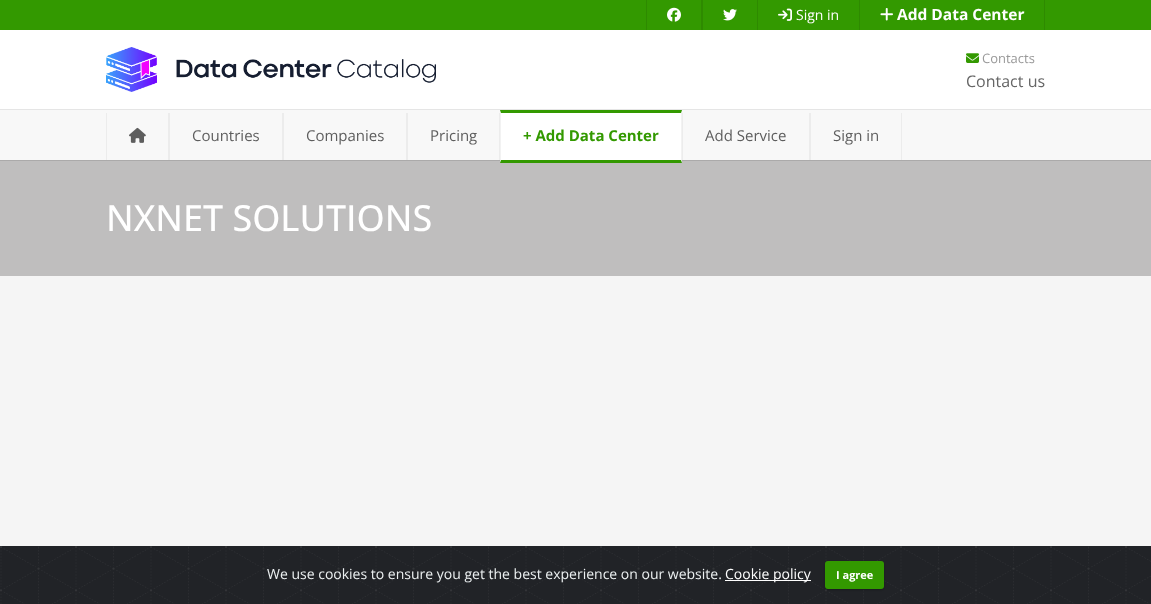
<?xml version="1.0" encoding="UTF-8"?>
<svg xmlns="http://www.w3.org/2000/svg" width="1151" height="604">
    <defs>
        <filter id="blur1" x="-50%" y="-200%" width="200%" height="500%"><feGaussianBlur stdDeviation="1"/></filter>
    </defs>
    <rect width="100%" height="100%" fill="#FFFFFF"/>
    <rect x="0" y="0" width="1151" height="30" fill="#339900"/>
    <rect x="701" y="0" width="2" height="30" fill="#2E8A00"/>
    <rect x="646" y="0" width="1" height="30" fill="#2E8A00"/>
    <image x="667" y="7" width="14" height="15" href="img_01.png"/>
    <rect x="757" y="0" width="1" height="30" fill="#2E8A00"/>
    <image x="723" y="9" width="14" height="12" href="img_02.png"/>
    <rect x="859" y="0" width="1" height="30" fill="#2E8A00"/>
    <image x="778" y="8" width="14" height="13" href="img_03.png"/>
    <text x="796" y="20" font-family="Open Sans" font-size="14" fill="#FFFFFF">Sign in</text>
    <rect x="1044" y="0" width="1" height="30" fill="#2E8A00"/>
    <image x="880" y="8" width="13" height="13" href="img_04.png"/>
    <text x="897" y="20" font-family="Open Sans" font-size="15.5" font-weight="700" fill="#FFFFFF">Add Data Center</text>
    <image x="106" y="47" width="330" height="45" href="img_05.png"/>
    <image x="966" y="53" width="13" height="10" href="img_06.png"/>
    <text x="982" y="63" font-family="Open Sans" font-size="13" fill="#999999">Contacts</text>
    <text x="966" y="87" font-family="Open Sans" font-size="16" fill="#666666">Contact us</text>
    <rect x="0" y="160" width="1151" height="116" fill="#BFBEBE"/>
    <rect x="-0.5" y="109.5" width="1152" height="51" fill="none" stroke="#000000" stroke-opacity="0.1"/>
    <rect x="0" y="110" width="1151" height="50" fill="#F8F8F8"/>
    <rect x="168" y="113" width="2" height="47" fill="#ECECEC"/>
    <rect x="106" y="113" width="1" height="47" fill="#ECECEC"/>
    <image x="129" y="127" width="17" height="16" href="img_07.png"/>
    <text x="192" y="141" font-family="Open Sans" font-size="15" fill="#5E5E5E">Countries</text>
    <rect x="282" y="113" width="2" height="47" fill="#ECECEC"/>
    <text x="306" y="141" font-family="Open Sans" font-size="15" fill="#5E5E5E">Companies</text>
    <rect x="406" y="113" width="2" height="47" fill="#ECECEC"/>
    <text x="430" y="141" font-family="Open Sans" font-size="15" fill="#5E5E5E">Pricing</text>
    <rect x="499" y="113" width="1" height="47" fill="#ECECEC"/>
    <rect x="500" y="110" width="182" height="53" fill="#FFFFFF"/>
    <text x="523" y="141" font-family="Open Sans" font-size="15" font-weight="700" fill="#339900">+ Add Data Center</text>
    <path d="M 500 110 H 682 L 681 113 H 501 Z" fill="#339900"/>
    <path d="M 682 110 V 163 L 681 160 V 113 Z" fill="#000000" fill-opacity="0.05"/>
    <path d="M 682 163 H 500 L 501 160 H 681 Z" fill="#339900"/>
    <path d="M 500 163 V 110 L 501 113 V 160 Z" fill="#000000" fill-opacity="0.05"/>
    <text x="705" y="141" font-family="Open Sans" font-size="15" fill="#5E5E5E">Add Service</text>
    <rect x="809" y="113" width="2" height="47" fill="#ECECEC"/>
    <rect x="682" y="113" width="1" height="47" fill="#ECECEC"/>
    <text x="833" y="141" font-family="Open Sans" font-size="15" fill="#5E5E5E">Sign in</text>
    <rect x="901" y="113" width="1" height="47" fill="#ECECEC"/>
    <text x="106" y="231" font-family="Open Sans" font-size="36" font-weight="500" fill="#FFFFFF">NXNET SOLUTIONS</text>
    <rect x="0" y="276" width="1151" height="270" fill="#F5F5F5"/>
    <image x="0" y="546" width="1151" height="58" href="img_08.png"/>
    <text x="267" y="579" font-family="Open Sans" font-size="14" fill="#ECF0F1">We use cookies to ensure you get the best experience on our website.</text>
    <rect x="725" y="580" width="86" height="1" fill="#FFFFFF"/>
    <text x="725" y="579" font-family="Open Sans" font-size="14" fill="#FFFFFF">Cookie policy</text>
    <rect x="825" y="562" width="59" height="28" rx="3" fill="#000000" fill-opacity="0.25" filter="url(#blur1)"/>
    <rect x="825" y="561" width="59" height="28" rx="3" fill="#339900"/>
    <text x="836" y="579" font-family="Open Sans" font-size="11" font-weight="700" fill="#FFFFFF">I agree</text>
</svg>
